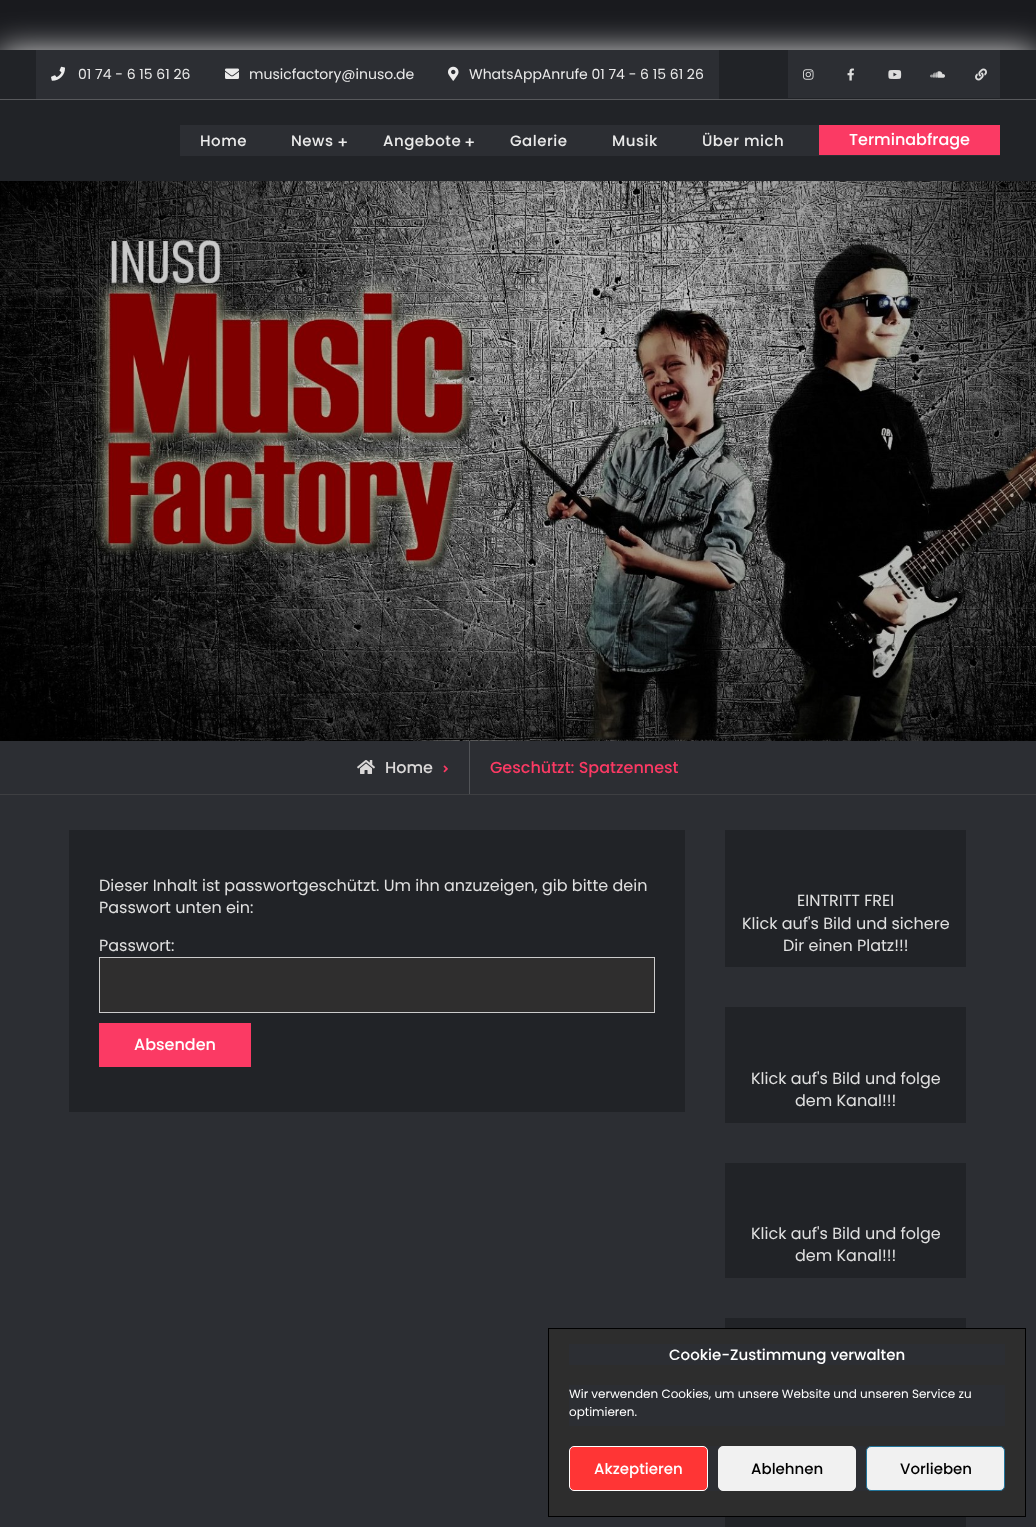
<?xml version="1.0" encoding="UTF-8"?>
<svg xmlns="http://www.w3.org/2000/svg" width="1036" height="1527">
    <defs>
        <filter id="blur1" x="-50%" y="-200%" width="200%" height="500%"><feGaussianBlur stdDeviation="16.5"/></filter>
    </defs>
    <rect width="100%" height="100%" fill="#191A1E"/>
    <rect x="0" y="50" width="1036" height="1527" fill="#DDDDDD" filter="url(#blur1)"/>
    <rect x="0" y="50" width="1036" height="131" fill="#212327"/>
    <rect x="0" y="99" width="1036" height="1" fill="#58595C"/>
    <rect x="36" y="50" width="683" height="49" fill="#2C2E33"/>
    <image x="51" y="66" width="14" height="15" href="img_01.png"/>
    <text x="78" y="79" font-family="Poppins" font-size="14" fill="#EAEAEA">01 74 - 6 15 61 26</text>
    <image x="225" y="68" width="14" height="11" href="img_02.png"/>
    <text x="249" y="79" font-family="Poppins" font-size="14" fill="#EAEAEA">musicfactory@inuso.de</text>
    <image x="448" y="66" width="11" height="15" href="img_03.png"/>
    <text x="469" y="79" font-family="Poppins" font-size="14" fill="#EAEAEA">WhatsAppAnrufe 01 74 - 6 15 61 26</text>
    <rect x="788" y="50" width="212" height="48" fill="#2C2E33"/>
    <image x="803" y="69" width="11" height="11" href="img_04.png"/>
    <image x="847" y="68" width="7" height="13" href="img_05.png"/>
    <image x="888" y="70" width="14" height="9" href="img_06.png"/>
    <image x="930" y="71" width="15" height="7" href="img_07.png"/>
    <image x="975" y="68" width="12" height="13" href="img_08.png"/>
    <rect x="180" y="125" width="820" height="31" fill="#2C2E33"/>
    <text x="200" y="146" font-family="Poppins" font-size="15" font-weight="500" letter-spacing="0.5" fill="#EAEAEA">Home</text>
    <text x="291" y="146" font-family="Poppins" font-size="15" font-weight="500" letter-spacing="0.5" fill="#EAEAEA">News</text>
    <text x="337" y="148" font-family="Poppins" font-size="16" font-weight="500" letter-spacing="0.5" fill="#EAEAEA">+</text>
    <text x="383" y="146" font-family="Poppins" font-size="15" font-weight="500" letter-spacing="0.5" fill="#EAEAEA">Angebote</text>
    <text x="464" y="148" font-family="Poppins" font-size="16" font-weight="500" letter-spacing="0.5" fill="#EAEAEA">+</text>
    <text x="510" y="146" font-family="Poppins" font-size="15" font-weight="500" letter-spacing="0.5" fill="#EAEAEA">Galerie</text>
    <text x="612" y="146" font-family="Poppins" font-size="15" font-weight="500" letter-spacing="0.5" fill="#EAEAEA">Musik</text>
    <text x="702" y="146" font-family="Poppins" font-size="15" font-weight="500" letter-spacing="0.5" fill="#EAEAEA">Über mich</text>
    <rect x="819" y="125" width="181" height="30" fill="#FB3A64"/>
    <text x="849" y="145" font-family="Poppins" font-size="16" font-weight="500" fill="#FFFFFF">Terminabfrage</text>
    <image x="0" y="181" width="1036" height="560" href="img_09.png"/>
    <rect x="0" y="794" width="1036" height="1" fill="#3E3F42"/>
    <rect x="0" y="741" width="1036" height="53" fill="#2C2E33"/>
    <rect x="469" y="741" width="1" height="53" fill="#515357"/>
    <image x="357" y="760" width="18" height="14" href="img_10.png"/>
    <text x="385" y="773" font-family="Poppins" font-size="16" font-weight="500" fill="#DAD8D8">Home</text>
    <image x="443" y="765" width="5" height="8" href="img_11.png"/>
    <text x="490" y="773" font-family="Poppins" font-size="16" font-weight="500" fill="#FB3A64">Geschützt: Spatzennest</text>
    <rect x="0" y="795" width="1036" height="732" fill="#2C2E33"/>
    <rect x="69" y="830" width="616" height="282" fill="#212327"/>
    <text font-family="Poppins" font-size="16" fill="#E0E0E0">
        <tspan x="99" y="891">Dieser Inhalt ist passwortgeschützt. Um ihn anzuzeigen, gib bitte dein</tspan>
        <tspan x="99" y="913">Passwort unten ein:</tspan>
    </text>
    <text x="99" y="951" font-family="Poppins" font-size="16" fill="#E0E0E0">Passwort:</text>
    <rect x="99.5" y="957.5" width="555" height="55" fill="#2F2E2E" stroke="#CCCCCC"/>
    <rect x="99" y="1023" width="152" height="44" fill="#FB3A64"/>
    <text x="134" y="1050" font-family="Poppins" font-size="16" font-weight="500" fill="#FFFFFF">Absenden</text>
    <rect x="725" y="830" width="241" height="137" fill="#212327"/>
    <text x="797" y="906" font-family="Poppins" font-size="16" fill="#E0E0E0">EINTRITT FREI</text>
    <text x="742" y="929" font-family="Poppins" font-size="16" fill="#E0E0E0">Klick auf's Bild und sichere</text>
    <text x="783" y="951" font-family="Poppins" font-size="16" fill="#E0E0E0">Dir einen Platz!!!</text>
    <rect x="725" y="1007" width="241" height="116" fill="#212327"/>
    <text x="751" y="1084" font-family="Poppins" font-size="16" fill="#E0E0E0">Klick auf's Bild und folge</text>
    <text x="795" y="1106" font-family="Poppins" font-size="16" fill="#E0E0E0">dem Kanal!!!</text>
    <rect x="725" y="1163" width="241" height="115" fill="#212327"/>
    <text x="751" y="1239" font-family="Poppins" font-size="16" fill="#E0E0E0">Klick auf's Bild und folge</text>
    <text x="795" y="1261" font-family="Poppins" font-size="16" fill="#E0E0E0">dem Kanal!!!</text>
    <rect x="725" y="1318" width="241" height="209" fill="#212327"/>
    <rect x="548.5" y="1328.5" width="477" height="188" fill="#2D2D2D" stroke="#000000"/>
    <rect x="569" y="1344" width="436" height="21" fill="#2C2E33"/>
    <text x="669" y="1360" font-family="Poppins" font-size="15" font-weight="500" fill="#FFFFFF">Cookie-Zustimmung verwalten</text>
    <rect x="569" y="1385" width="436" height="41" fill="#2C2E33"/>
    <text font-family="Poppins" font-size="12" fill="#FFFFFF">
        <tspan x="569" y="1398">Wir verwenden Cookies, um unsere Website und unseren Service zu</tspan>
        <tspan x="569" y="1416">optimieren.</tspan>
    </text>
    <rect x="569" y="1446" width="436" height="45" fill="#2C2E33"/>
    <rect x="569.5" y="1446.5" width="138" height="44" rx="4.5" fill="#FF3535" stroke="#FFFFFF"/>
    <text x="594" y="1474" font-family="Poppins" font-size="15" font-weight="500" fill="#FFFFFF">Akzeptieren</text>
    <rect x="718.5" y="1446.5" width="137" height="44" rx="4.5" fill="#F1F1F1" stroke="#F1F1F1"/>
    <text x="751" y="1474" font-family="Poppins" font-size="15" font-weight="500" fill="#000000">Ablehnen</text>
    <rect x="866.5" y="1446.5" width="138" height="44" rx="4.5" fill="#F1F1F1" stroke="#21759B"/>
    <text x="900" y="1474" font-family="Poppins" font-size="15" font-weight="500" fill="#000000">Vorlieben</text>
</svg>
